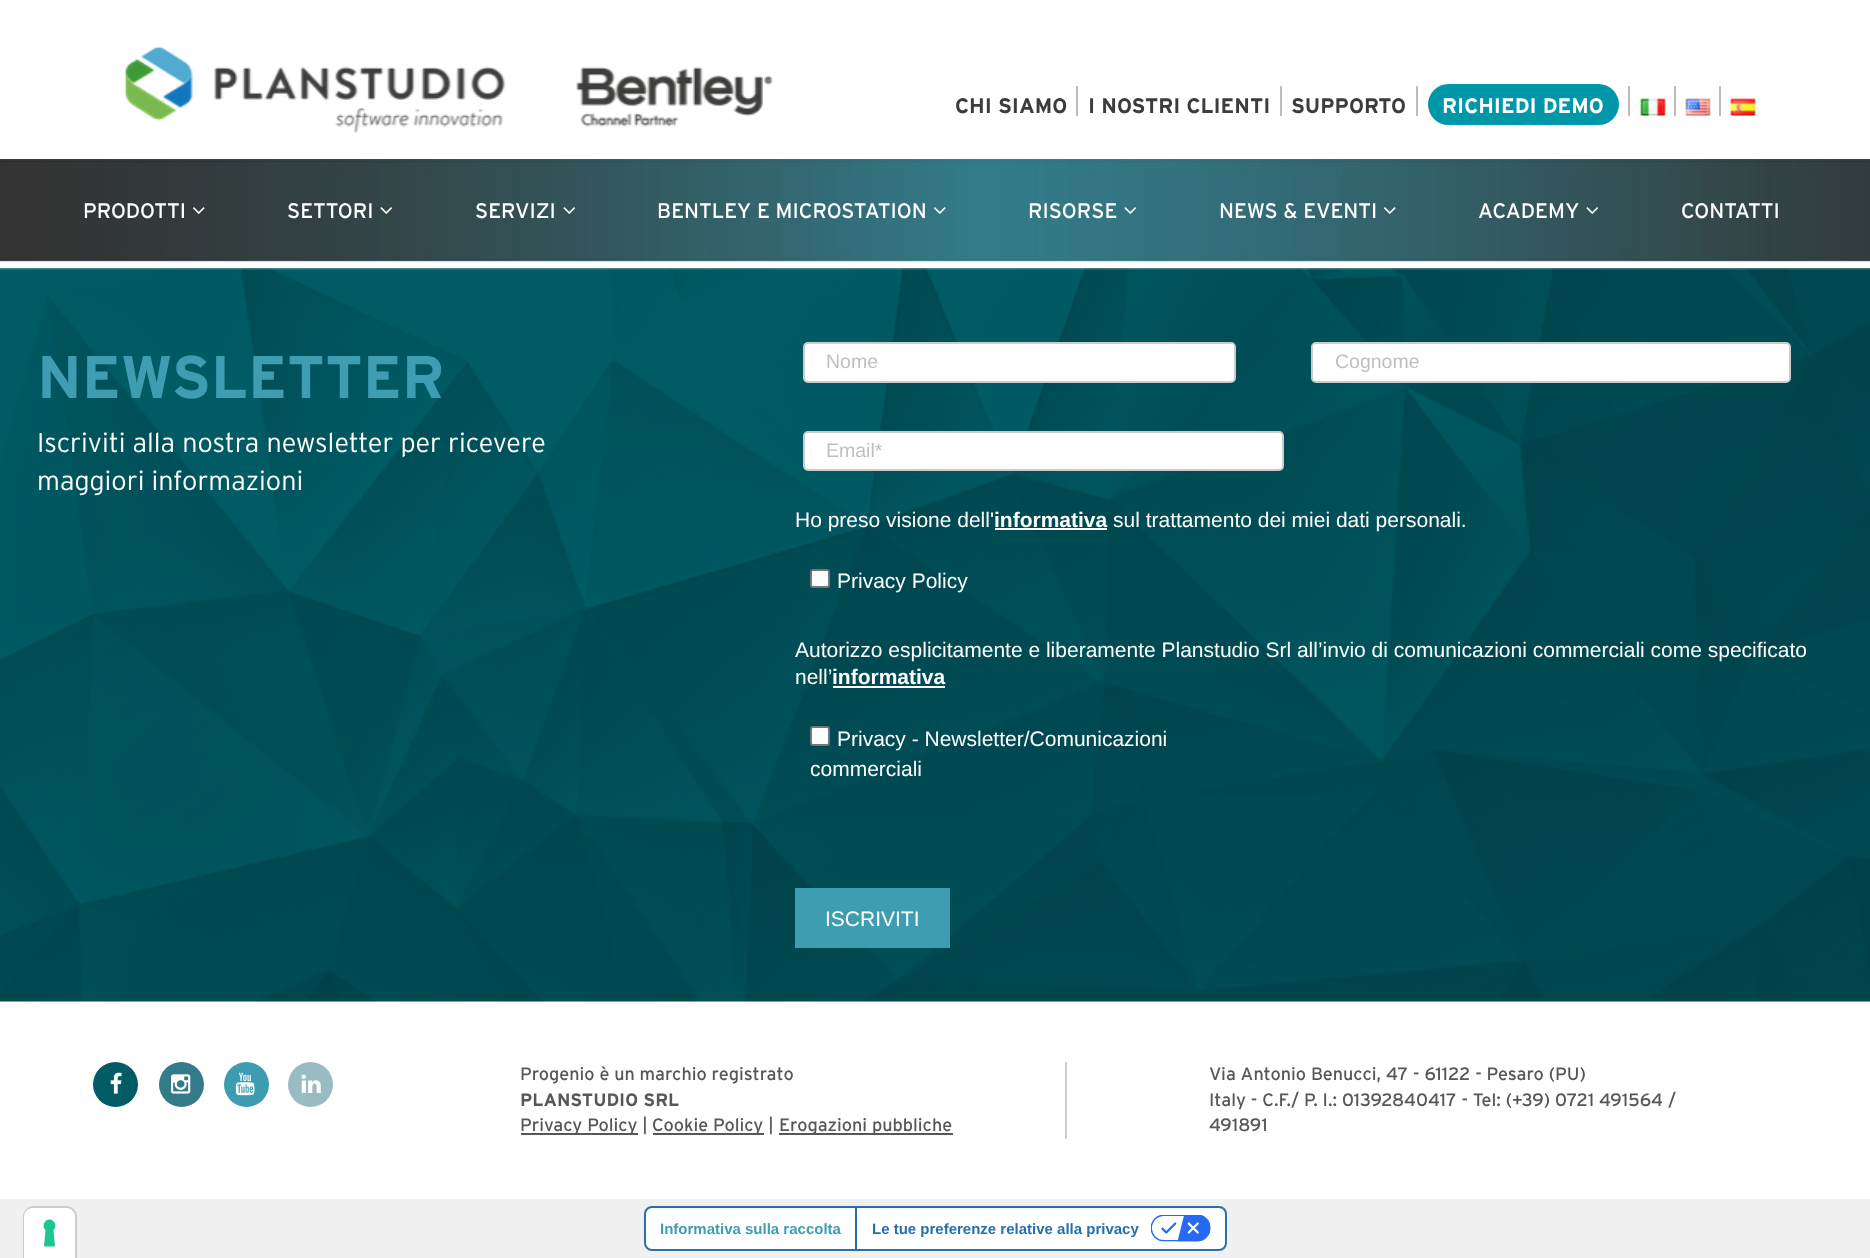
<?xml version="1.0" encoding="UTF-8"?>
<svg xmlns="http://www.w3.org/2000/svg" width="1870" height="1258">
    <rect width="100%" height="100%" fill="#F0F0F0"/>
    <rect x="0" y="260" width="1870" height="939" fill="#FFFFFF"/>
    <rect x="0" y="0" width="1870" height="159" fill="#FFFFFF"/>
    <image x="124" y="46" width="649" height="87" href="img_01.png"/>
    <text x="955" y="113" font-family="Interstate" font-size="21" font-weight="700" fill="#3C3C3B">CHI SIAMO</text>
    <rect x="1076" y="86" width="2" height="30" fill="#BCBCBA"/>
    <text x="1088" y="113" font-family="Interstate" font-size="21" font-weight="700" fill="#3C3C3B">I NOSTRI CLIENTI</text>
    <rect x="1280" y="86" width="2" height="30" fill="#BCBCBA"/>
    <text x="1291" y="113" font-family="Interstate" font-size="21" font-weight="700" fill="#3C3C3B">SUPPORTO</text>
    <rect x="1416" y="86" width="2" height="30" fill="#BCBCBA"/>
    <rect x="1428" y="84" width="191" height="41" rx="20.5" fill="#0097A9"/>
    <text x="1442" y="113" font-family="Interstate" font-size="21" font-weight="700" fill="#FFFFFF">RICHIEDI DEMO</text>
    <rect x="1628" y="86" width="2" height="30" fill="#BCBCBA"/>
    <image x="1640" y="98" width="26" height="18" href="img_02.png"/>
    <rect x="1674" y="86" width="2" height="30" fill="#BCBCBA"/>
    <image x="1685" y="98" width="26" height="18" href="img_03.png"/>
    <rect x="1719" y="86" width="2" height="30" fill="#BCBCBA"/>
    <image x="1730" y="98" width="26" height="18" href="img_04.png"/>
    <image x="0" y="159" width="1870" height="103" href="img_05.png"/>
    <text x="83" y="218" font-family="Interstate" font-size="21" fill="#FFFFFF">PRODOTTI</text>
    <image x="193" y="207" width="12" height="7" href="img_06.png"/>
    <text x="287" y="218" font-family="Interstate" font-size="21" fill="#FFFFFF">SETTORI</text>
    <image x="380" y="207" width="12" height="7" href="img_07.png"/>
    <text x="475" y="218" font-family="Interstate" font-size="21" fill="#FFFFFF">SERVIZI</text>
    <image x="563" y="207" width="12" height="7" href="img_08.png"/>
    <text x="657" y="218" font-family="Interstate" font-size="21" fill="#FFFFFF">BENTLEY E MICROSTATION</text>
    <image x="934" y="207" width="12" height="7" href="img_09.png"/>
    <text x="1028" y="218" font-family="Interstate" font-size="21" fill="#FFFFFF">RISORSE</text>
    <image x="1124" y="207" width="12" height="7" href="img_10.png"/>
    <text x="1219" y="218" font-family="Interstate" font-size="21" fill="#FFFFFF">NEWS &amp; EVENTI</text>
    <image x="1384" y="207" width="12" height="7" href="img_11.png"/>
    <text x="1478" y="218" font-family="Interstate" font-size="21" fill="#FFFFFF">ACADEMY</text>
    <image x="1586" y="207" width="12" height="7" href="img_12.png"/>
    <text x="1681" y="218" font-family="Interstate" font-size="21" fill="#FFFFFF">CONTATTI</text>
    <image x="0" y="268" width="1870" height="734" href="img_13.png"/>
    <text x="37" y="398" font-family="Interstate" font-size="60" font-weight="700" fill="#3E9DB1">NEWSLETTER</text>
    <text font-family="Interstate" font-size="27" font-weight="300" fill="#FFFFFF">
        <tspan x="37" y="452">Iscriviti alla nostra newsletter per ricevere</tspan>
        <tspan x="37" y="490">maggiori informazioni</tspan>
    </text>
    <rect x="804" y="343" width="431" height="39" rx="4" fill="#FFFFFF" stroke="#CCCCCC" stroke-width="2"/>
    <text x="826" y="368" font-family="Liberation Sans" font-size="19.5" fill="#BFBFBF">Nome</text>
    <rect x="1312" y="343" width="478" height="39" rx="4" fill="#FFFFFF" stroke="#CCCCCC" stroke-width="2"/>
    <text x="1335" y="368" font-family="Liberation Sans" font-size="19.5" fill="#BFBFBF">Cognome</text>
    <rect x="804" y="432" width="479" height="38" rx="4" fill="#FFFFFF" stroke="#CCCCCC" stroke-width="2"/>
    <text x="826" y="457" font-family="Liberation Sans" font-size="19.5" fill="#BFBFBF">Email*</text>
    <text x="795" y="527" font-family="Liberation Sans" font-size="21" fill="#FFFFFF">Ho preso visione dell'</text>
    <text x="994" y="527" font-family="Liberation Sans" font-size="21" font-weight="700" fill="#FFFFFF">informativa</text>
    <rect x="995" y="528" width="112" height="2" fill="#FFFFFF"/>
    <text x="1113" y="527" font-family="Liberation Sans" font-size="21" fill="#FFFFFF">sul trattamento dei miei dati personali.</text>
    <rect x="811" y="570" width="18" height="17" rx="2" fill="#FFFFFF" stroke="#767676" stroke-width="2"/>
    <text x="837" y="588" font-family="Liberation Sans" font-size="21" fill="#FFFFFF">Privacy Policy</text>
    <text font-family="Liberation Sans" font-size="21" fill="#FFFFFF">
        <tspan x="795" y="657">Autorizzo esplicitamente e liberamente Planstudio Srl all’invio di comunicazioni commerciali come specificato</tspan>
        <tspan x="795" y="684">nell’</tspan>
    </text>
    <text x="832" y="684" font-family="Liberation Sans" font-size="21" font-weight="700" fill="#FFFFFF">informativa</text>
    <rect x="833" y="686" width="112" height="2" fill="#FFFFFF"/>
    <rect x="811" y="727" width="18" height="18" rx="2" fill="#FFFFFF" stroke="#767676" stroke-width="2"/>
    <text x="837" y="746" font-family="Liberation Sans" font-size="21" fill="#FFFFFF">Privacy - Newsletter/Comunicazioni</text>
    <text x="810" y="776" font-family="Liberation Sans" font-size="21" fill="#FFFFFF">commerciali</text>
    <rect x="795" y="888" width="155" height="60" fill="#3E9DB1"/>
    <text x="825" y="926" font-family="Liberation Sans" font-size="21" fill="#FFFFFF">ISCRIVITI</text>
    <circle cx="115.5" cy="1084.5" r="22.5" fill="#025C65"/>
    <image x="110" y="1072" width="12" height="22" href="img_14.png"/>
    <circle cx="181.5" cy="1084.5" r="22.5" fill="#337B89"/>
    <image x="171" y="1074" width="20" height="20" href="img_15.png"/>
    <circle cx="246.5" cy="1084.5" r="22.5" fill="#3E9CB0"/>
    <image x="235" y="1072" width="20" height="24" href="img_16.png"/>
    <circle cx="310.5" cy="1084.5" r="22.5" fill="#99BCC3"/>
    <image x="301" y="1074" width="20" height="19" href="img_17.png"/>
    <rect x="1065" y="1062" width="2" height="77" fill="#CCCCCC"/>
    <text x="520" y="1080" font-family="Interstate" font-size="18" fill="#575756">Progenio è un marchio registrato</text>
    <text x="520" y="1106" font-family="Interstate" font-size="18" font-weight="700" fill="#575756">PLANSTUDIO SRL</text>
    <rect x="521" y="1133" width="117" height="2" fill="#575756"/>
    <text x="520" y="1131" font-family="Interstate" font-size="18" fill="#575756">Privacy Policy |</text>
    <rect x="653" y="1133" width="111" height="2" fill="#575756"/>
    <text x="652" y="1131" font-family="Interstate" font-size="18" fill="#575756">Cookie Policy |</text>
    <rect x="779" y="1133" width="174" height="2" fill="#575756"/>
    <text x="779" y="1131" font-family="Interstate" font-size="18" fill="#575756">Erogazioni pubbliche</text>
    <text font-family="Interstate" font-size="18" fill="#575756">
        <tspan x="1209" y="1080">Via Antonio Benucci, 47 - 61122 - Pesaro (PU)</tspan>
        <tspan x="1209" y="1106">Italy - C.F./ P. I.: 01392840417 - Tel: (+39) 0721 491564 /</tspan>
        <tspan x="1209" y="1131">491891</tspan>
    </text>
    <path d="M 34 1207 H 66 C 71.5 1207 76 1211.5 76 1217 V 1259 H 24 V 1217 C 24 1211.5 28.5 1207 34 1207 Z" fill="none" stroke="#CCCCCC" stroke-width="2"/>
    <path d="M 33 1208 H 66 C 71 1208 75 1212 75 1217 V 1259 H 24 V 1217 C 24 1212 28 1208 33 1208 Z" fill="#FFFFFF"/>
    <path d="M 49.5 1219.5 C 55 1219.5 57.5 1226.5 53.5 1230 L 55 1246.5 H 44 L 45.5 1230 C 41.5 1226.5 44 1219.5 49.5 1219.5 Z" fill="#1CC691" fill-rule="evenodd"/>
    <rect x="645" y="1207" width="581" height="43" rx="7" fill="#FFFFFF" stroke="#2770AA" stroke-width="2"/>
    <text x="660" y="1234" font-family="Liberation Sans" font-size="15" font-weight="700" fill="#3E9DB1">Informativa sulla raccolta</text>
    <rect x="855" y="1208" width="2" height="42" fill="#2770AA"/>
    <text x="872" y="1234" font-family="Liberation Sans" font-size="15" font-weight="700" fill="#2770AA">Le tue preferenze relative alla privacy</text>
    <image x="1151" y="1215" width="60" height="27" href="img_18.png"/>
</svg>
